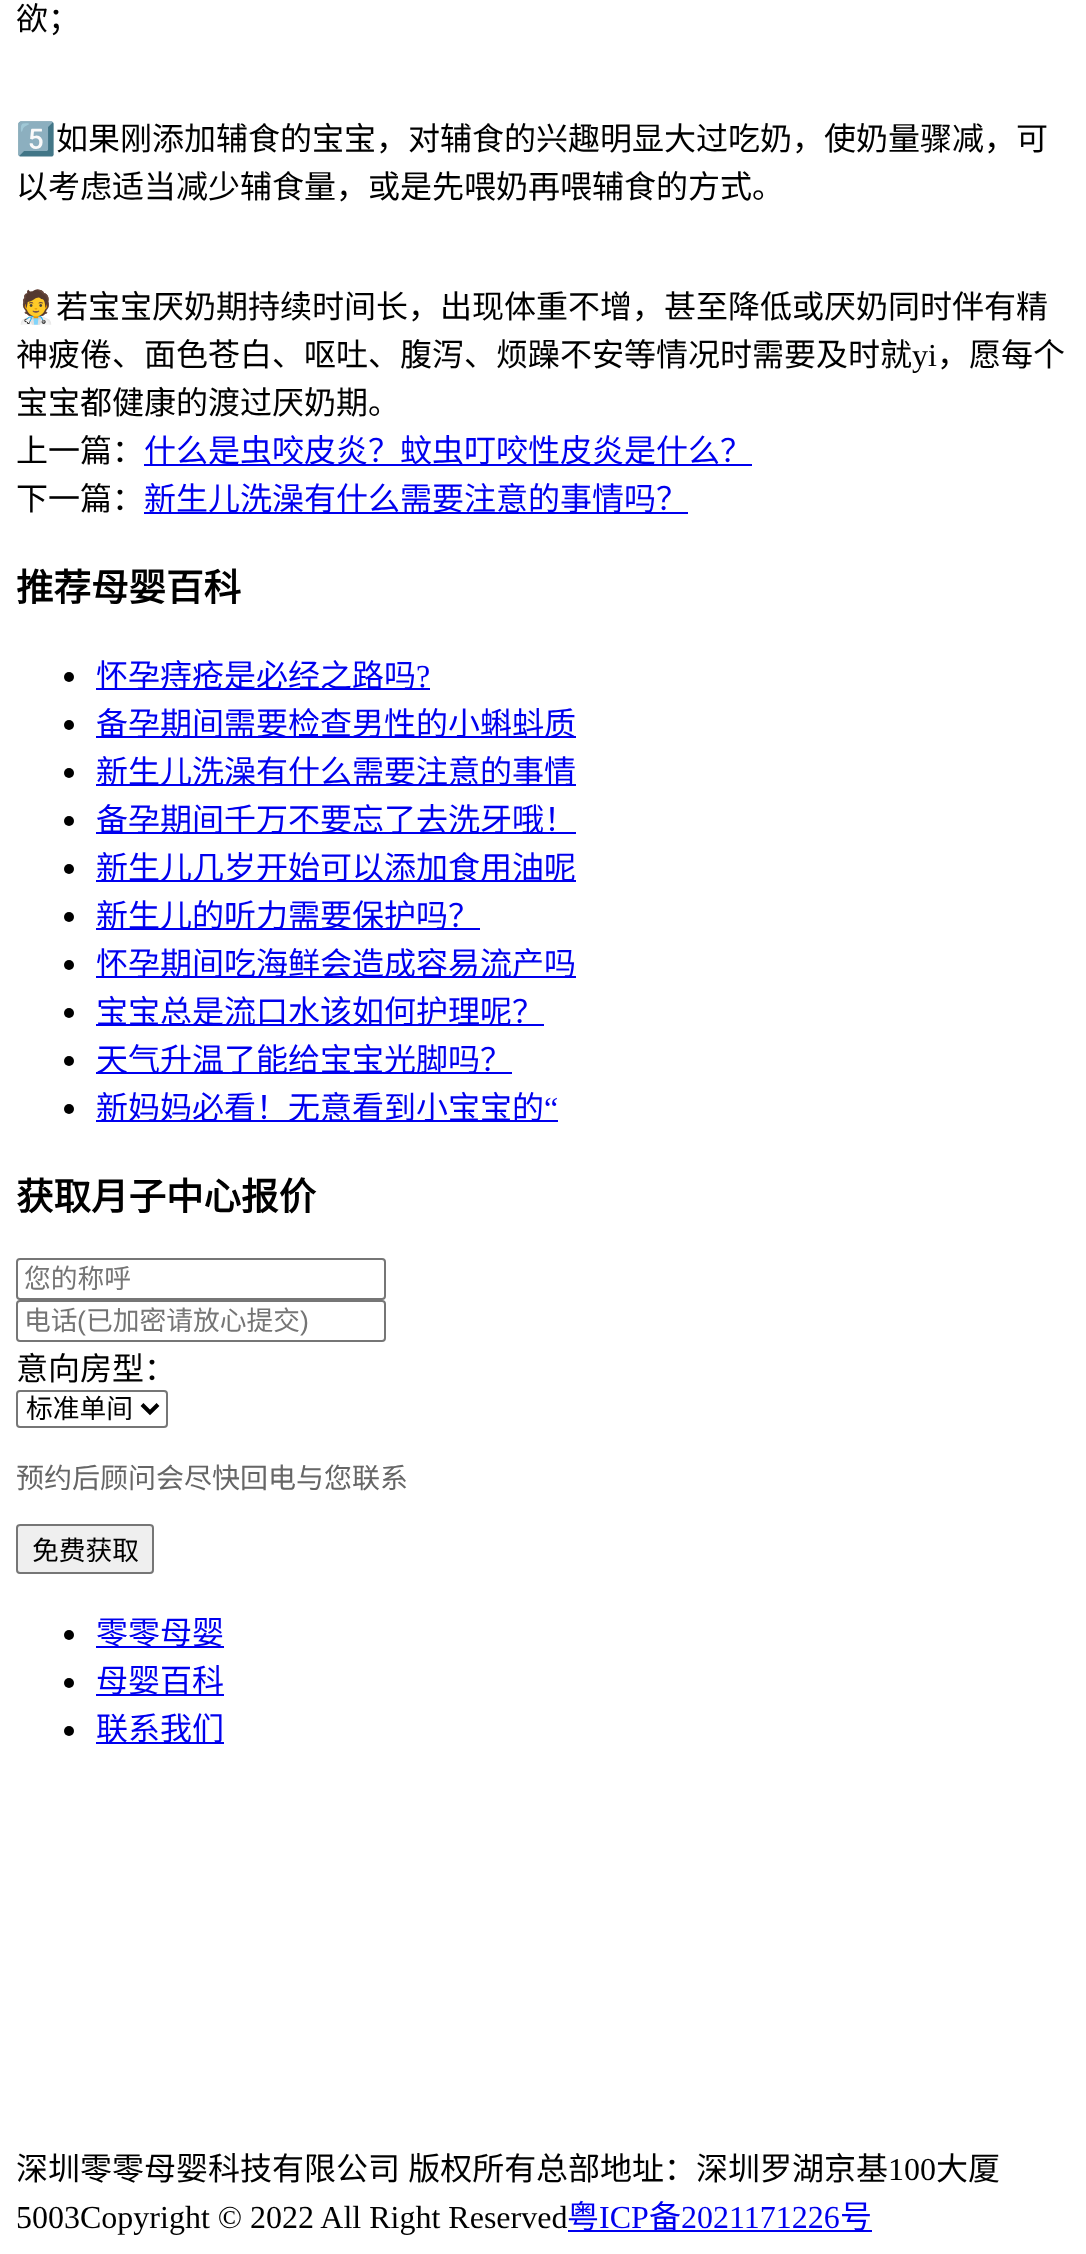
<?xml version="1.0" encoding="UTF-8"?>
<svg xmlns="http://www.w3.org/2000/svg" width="1086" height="2254">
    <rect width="100%" height="100%" fill="#FFFFFF"/>
    <text x="16" y="30" font-family="Noto Sans CJK SC" font-size="32" fill="#000000">欲；</text>
    <text x="16" y="150" font-family="Noto Color Emoji" font-size="32" fill="#000000">5️⃣</text>
    <text x="56" y="150" font-family="Noto Sans CJK SC" font-size="32" fill="#000000">如果刚添加辅食的宝宝，对辅食的兴趣明显大过吃奶，使奶量骤减，可</text>
    <text x="16" y="198" font-family="Noto Sans CJK SC" font-size="32" fill="#000000">以考虑适当减少辅食量，或是先喂奶再喂辅食的方式。</text>
    <text x="16" y="318" font-family="Noto Color Emoji" font-size="32" fill="#000000">🧑‍⚕️</text>
    <text x="56" y="318" font-family="Noto Sans CJK SC" font-size="32" fill="#000000">若宝宝厌奶期持续时间长，出现体重不增，甚至降低或厌奶同时伴有精</text>
    <text x="16" y="366" font-family="Noto Sans CJK SC" font-size="32" fill="#000000">神疲倦、面色苍白、呕吐、腹泻、烦躁不安等情况时需要及时就</text>
    <text x="912" y="366" font-family="Liberation Serif" font-size="32" fill="#000000">yi</text>
    <text x="937" y="366" font-family="Noto Sans CJK SC" font-size="32" fill="#000000">，愿每个</text>
    <text font-family="Noto Sans CJK SC" font-size="32" fill="#000000">
        <tspan x="16" y="414">宝宝都健康的渡过厌奶期。</tspan>
        <tspan x="16" y="462">上一篇：</tspan>
    </text>
    <rect x="144" y="464" width="608" height="2" fill="#0000EE"/>
    <text x="144" y="462" font-family="Noto Sans CJK SC" font-size="32" fill="#0000EE">什么是虫咬皮炎？蚊虫叮咬性皮炎是什么？</text>
    <text x="16" y="510" font-family="Noto Sans CJK SC" font-size="32" fill="#000000">下一篇：</text>
    <rect x="144" y="512" width="544" height="2" fill="#0000EE"/>
    <text x="144" y="510" font-family="Noto Sans CJK SC" font-size="32" fill="#0000EE">新生儿洗澡有什么需要注意的事情吗？</text>
    <text x="16" y="601" font-family="Noto Sans CJK SC" font-size="37.5" font-weight="700" fill="#000000">推荐母婴百科</text>
    <circle cx="69" cy="677" r="5" fill="#000000"/>
    <rect x="96" y="688" width="334" height="2" fill="#0000EE"/>
    <text x="96" y="687" font-family="Noto Sans CJK SC" font-size="32" fill="#0000EE">怀孕痔疮是必经之路吗</text>
    <text x="416" y="687" font-family="Liberation Serif" font-size="32" fill="#0000EE">?</text>
    <circle cx="69" cy="725" r="5" fill="#000000"/>
    <rect x="96" y="736" width="480" height="2" fill="#0000EE"/>
    <text x="96" y="735" font-family="Noto Sans CJK SC" font-size="32" fill="#0000EE">备孕期间需要检查男性的小蝌蚪质</text>
    <circle cx="69" cy="773" r="5" fill="#000000"/>
    <rect x="96" y="784" width="480" height="2" fill="#0000EE"/>
    <text x="96" y="783" font-family="Noto Sans CJK SC" font-size="32" fill="#0000EE">新生儿洗澡有什么需要注意的事情</text>
    <circle cx="69" cy="821" r="5" fill="#000000"/>
    <rect x="96" y="832" width="480" height="2" fill="#0000EE"/>
    <text x="96" y="831" font-family="Noto Sans CJK SC" font-size="32" fill="#0000EE">备孕期间千万不要忘了去洗牙哦！</text>
    <circle cx="69" cy="869" r="5" fill="#000000"/>
    <rect x="96" y="880" width="480" height="2" fill="#0000EE"/>
    <text x="96" y="879" font-family="Noto Sans CJK SC" font-size="32" fill="#0000EE">新生儿几岁开始可以添加食用油呢</text>
    <circle cx="69" cy="917" r="5" fill="#000000"/>
    <rect x="96" y="928" width="384" height="2" fill="#0000EE"/>
    <text x="96" y="927" font-family="Noto Sans CJK SC" font-size="32" fill="#0000EE">新生儿的听力需要保护吗？</text>
    <circle cx="69" cy="965" r="5" fill="#000000"/>
    <rect x="96" y="976" width="480" height="2" fill="#0000EE"/>
    <text x="96" y="975" font-family="Noto Sans CJK SC" font-size="32" fill="#0000EE">怀孕期间吃海鲜会造成容易流产吗</text>
    <circle cx="69" cy="1013" r="5" fill="#000000"/>
    <rect x="96" y="1024" width="448" height="2" fill="#0000EE"/>
    <text x="96" y="1023" font-family="Noto Sans CJK SC" font-size="32" fill="#0000EE">宝宝总是流口水该如何护理呢？</text>
    <circle cx="69" cy="1061" r="5" fill="#000000"/>
    <rect x="96" y="1072" width="416" height="2" fill="#0000EE"/>
    <text x="96" y="1071" font-family="Noto Sans CJK SC" font-size="32" fill="#0000EE">天气升温了能给宝宝光脚吗？</text>
    <rect x="96" y="1120" width="462" height="2" fill="#0000EE"/>
    <text x="96" y="1119" font-family="Noto Sans CJK SC" font-size="32" fill="#0000EE">新妈妈必看！无意看到小宝宝的</text>
    <text x="544" y="1119" font-family="Liberation Serif" font-size="32" fill="#0000EE">“</text>
    <circle cx="69" cy="1109" r="5" fill="#000000"/>
    <text x="16" y="1210" font-family="Noto Sans CJK SC" font-size="37.5" font-weight="700" fill="#000000">获取月子中心报价</text>
    <rect x="17" y="1259" width="368" height="40" rx="3" fill="none" stroke="#767676" stroke-width="2"/>
    <text x="24" y="1288" font-family="Noto Sans CJK SC" font-size="26.75" fill="#757575">您的称呼</text>
    <rect x="17" y="1301" width="368" height="40" rx="3" fill="none" stroke="#767676" stroke-width="2"/>
    <text x="24" y="1330" font-family="Noto Sans CJK SC" font-size="26.75" fill="#757575">电话</text>
    <text x="77" y="1330" font-family="Liberation Sans" font-size="26.75" fill="#757575">(</text>
    <text x="86" y="1330" font-family="Noto Sans CJK SC" font-size="26.75" fill="#757575">已加密请放心提交</text>
    <text x="300" y="1330" font-family="Liberation Sans" font-size="26.75" fill="#757575">)</text>
    <text x="16" y="1380" font-family="Noto Sans CJK SC" font-size="32" fill="#000000">意向房型：</text>
    <rect x="17" y="1391" width="150" height="36" rx="3" fill="none" stroke="#767676" stroke-width="2"/>
    <path d="M 142 1404.5 L 150 1412.5 L 158 1404.5" fill="none" stroke="#000000" stroke-width="4"/>
    <text x="26" y="1418" font-family="Noto Sans CJK SC" font-size="26.75" fill="#000000">标准单间</text>
    <text x="16" y="1488" font-family="Noto Sans CJK SC" font-size="28" fill="#666666">预约后顾问会尽快回电与您联系</text>
    <rect x="17" y="1525" width="136" height="48" rx="3" fill="#EFEFEF" stroke="#767676" stroke-width="2"/>
    <text x="32" y="1560" font-family="Noto Sans CJK SC" font-size="26.75" fill="#000000">免费获取</text>
    <circle cx="69" cy="1635" r="5" fill="#000000"/>
    <rect x="96" y="1646" width="128" height="2" fill="#0000EE"/>
    <text x="96" y="1644" font-family="Noto Sans CJK SC" font-size="32" fill="#0000EE">零零母婴</text>
    <circle cx="69" cy="1683" r="5" fill="#000000"/>
    <rect x="96" y="1694" width="128" height="2" fill="#0000EE"/>
    <text x="96" y="1692" font-family="Noto Sans CJK SC" font-size="32" fill="#0000EE">母婴百科</text>
    <circle cx="69" cy="1731" r="5" fill="#000000"/>
    <rect x="96" y="1742" width="128" height="2" fill="#0000EE"/>
    <text x="96" y="1740" font-family="Noto Sans CJK SC" font-size="32" fill="#0000EE">联系我们</text>
    <text x="16" y="2180" word-spacing="1" font-family="Noto Sans CJK SC" font-size="32" fill="#000000">深圳零零母婴科技有限公司 版权所有</text>
    <text x="536" y="2180" font-family="Noto Sans CJK SC" font-size="32" fill="#000000">总部地址：深圳罗湖京基</text>
    <text x="888" y="2180" font-family="Liberation Serif" font-size="32" fill="#000000">100</text>
    <text x="936" y="2180" font-family="Noto Sans CJK SC" font-size="32" fill="#000000">大厦</text>
    <text x="16" y="2228" font-family="Liberation Serif" font-size="32" fill="#000000">5003Copyright © 2022 All Right Reserved</text>
    <rect x="568" y="2230" width="304" height="2" fill="#0000EE"/>
    <text x="567" y="2228" font-family="Noto Sans CJK SC" font-size="32" fill="#0000EE">粤</text>
    <text x="599" y="2228" font-family="Liberation Serif" font-size="32" fill="#0000EE">ICP</text>
    <text x="649" y="2228" font-family="Noto Sans CJK SC" font-size="32" fill="#0000EE">备</text>
    <text x="681" y="2228" font-family="Liberation Serif" font-size="32" fill="#0000EE">2021171226</text>
    <text x="840" y="2228" font-family="Noto Sans CJK SC" font-size="32" fill="#0000EE">号</text>
</svg>
